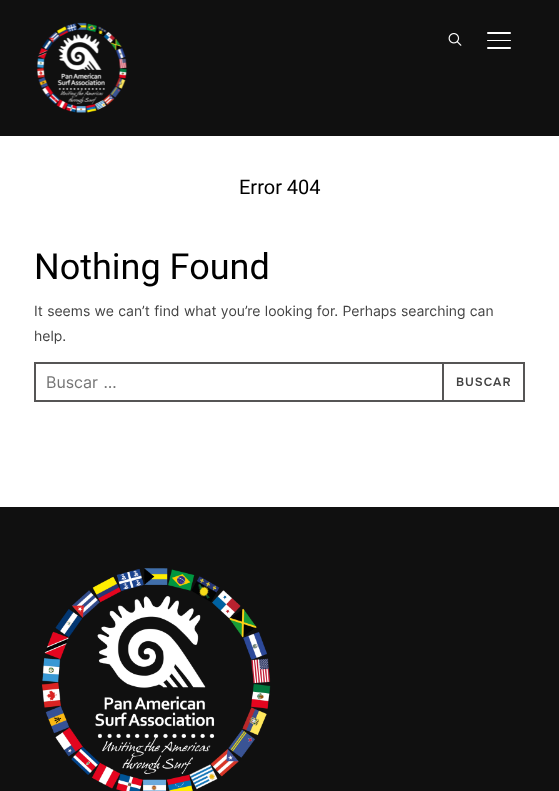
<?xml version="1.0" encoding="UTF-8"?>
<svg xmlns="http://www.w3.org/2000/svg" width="559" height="791">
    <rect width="100%" height="100%" fill="#FFFFFF"/>
    <rect x="0" y="0" width="559" height="136" fill="#101010"/>
    <image x="36" y="22" width="91" height="91" href="img_01.png"/>
    <image x="448" y="33" width="14" height="13" href="img_02.png"/>
    <rect x="487" y="32" width="24" height="2" rx="1" fill="#FFFFFF"/>
    <rect x="487" y="40" width="24" height="1" rx="0.5" fill="#FFFFFF"/>
    <rect x="487" y="47" width="24" height="2" rx="1" fill="#FFFFFF"/>
    <text x="239" y="194" font-family="Roboto" font-size="20" fill="#000000">Error 404</text>
    <text x="34" y="279" font-family="Roboto" font-size="36" fill="#000000">Nothing Found</text>
    <text font-family="Inter" font-size="14" fill="#444444">
        <tspan x="34" y="316" word-spacing="0.4">It seems we can’t find what you’re looking for. Perhaps searching can</tspan>
        <tspan x="34" y="341">help.</tspan>
    </text>
    <rect x="35" y="363" width="489" height="38" fill="none" stroke="#565555" stroke-width="2"/>
    <text x="46" y="388" word-spacing="1" font-family="Inter" font-size="16" fill="#757575">Buscar …</text>
    <rect x="443" y="363" width="81" height="38" fill="none" stroke="#565555" stroke-width="2"/>
    <text x="456" y="386" font-family="Onest" font-size="12" font-weight="600" letter-spacing="1" fill="#444444">BUSCAR</text>
    <rect x="0" y="507" width="559" height="284" fill="#101010"/>
    <image x="41" y="568" width="230" height="223" href="img_03.png"/>
</svg>
